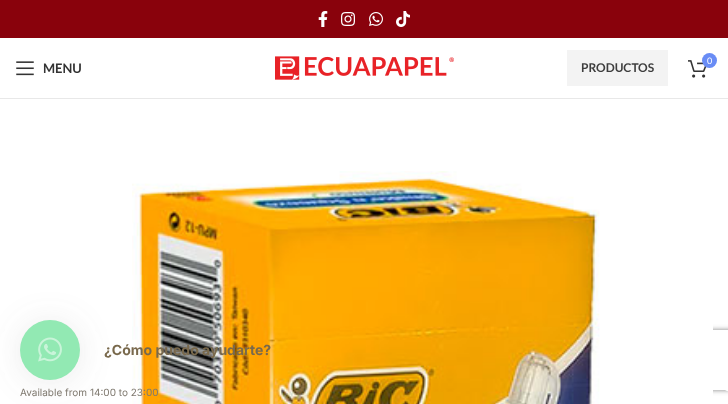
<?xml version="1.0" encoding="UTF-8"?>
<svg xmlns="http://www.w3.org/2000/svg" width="728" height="404">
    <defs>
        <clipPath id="clip1"><path d="M 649 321 H 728 V 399 H 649 Z M 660 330 H 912 C 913 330 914 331 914 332 V 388 C 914 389 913 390 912 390 H 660 C 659 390 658 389 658 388 V 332 C 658 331 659 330 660 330 Z" clip-rule="evenodd"/></clipPath>
        <filter id="blur1" x="-50%" y="-200%" width="200%" height="500%"><feGaussianBlur stdDeviation="2.5"/></filter>
        <filter id="blur2" x="-50%" y="-200%" width="200%" height="500%"><feGaussianBlur stdDeviation="16"/></filter>
    </defs>
    <rect width="100%" height="100%" fill="#FFFFFF"/>
    <rect x="0" y="0" width="728" height="38" fill="#89020C"/>
    <image x="318" y="11" width="10" height="16" href="img_01.png"/>
    <image x="341" y="12" width="14" height="14" href="img_02.png"/>
    <image x="369" y="12" width="14" height="14" href="img_03.png"/>
    <image x="396" y="11" width="14" height="16" href="img_04.png"/>
    <rect x="0" y="98" width="728" height="1" fill="#E8E8E8"/>
    <image x="16" y="61" width="18" height="15" href="img_05.png"/>
    <text x="43" y="73" font-family="Lato" font-size="13" font-weight="700" fill="#333333">MENU</text>
    <image x="275" y="56" width="179" height="24" href="img_06.png"/>
    <image x="688" y="60" width="19" height="18" href="img_07.png"/>
    <circle cx="709.5" cy="60.5" r="7.5" fill="#698CF5"/>
    <text x="707" y="64" font-family="Lato" font-size="9" fill="#FFFFFF">0</text>
    <rect x="567" y="50" width="101" height="36" fill="#F3F3F3"/>
    <text x="581" y="72" font-family="Lato" font-size="12" font-weight="700" fill="#3E3E3E">PRODUCTOS</text>
    <g clip-path="url(#clip1)">
        <rect x="658" y="330" width="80" height="60" rx="2" fill="#808080" filter="url(#blur1)"/>
    </g>
    <image x="132" y="171" width="581" height="233" href="img_08.png"/>
    <rect x="20" y="322" width="60" height="60" rx="30" fill="#808080" fill-opacity="0.16" filter="url(#blur2)"/>
    <circle cx="50" cy="350" r="30" fill="#92E9B3"/>
    <image x="38" y="337" width="24" height="25" href="img_09.png"/>
    <text x="104" y="355" font-family="Inter" font-size="14" font-weight="700" fill="#79694C">¿Cómo puedo ayudarte?</text>
    <text x="20" y="396" font-family="Inter" font-size="10" fill="#7F796F">Available from 14:00 to 23:00</text>
    <rect x="716" y="352" width="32" height="40" rx="20" fill="#FFFFFF"/>
</svg>
